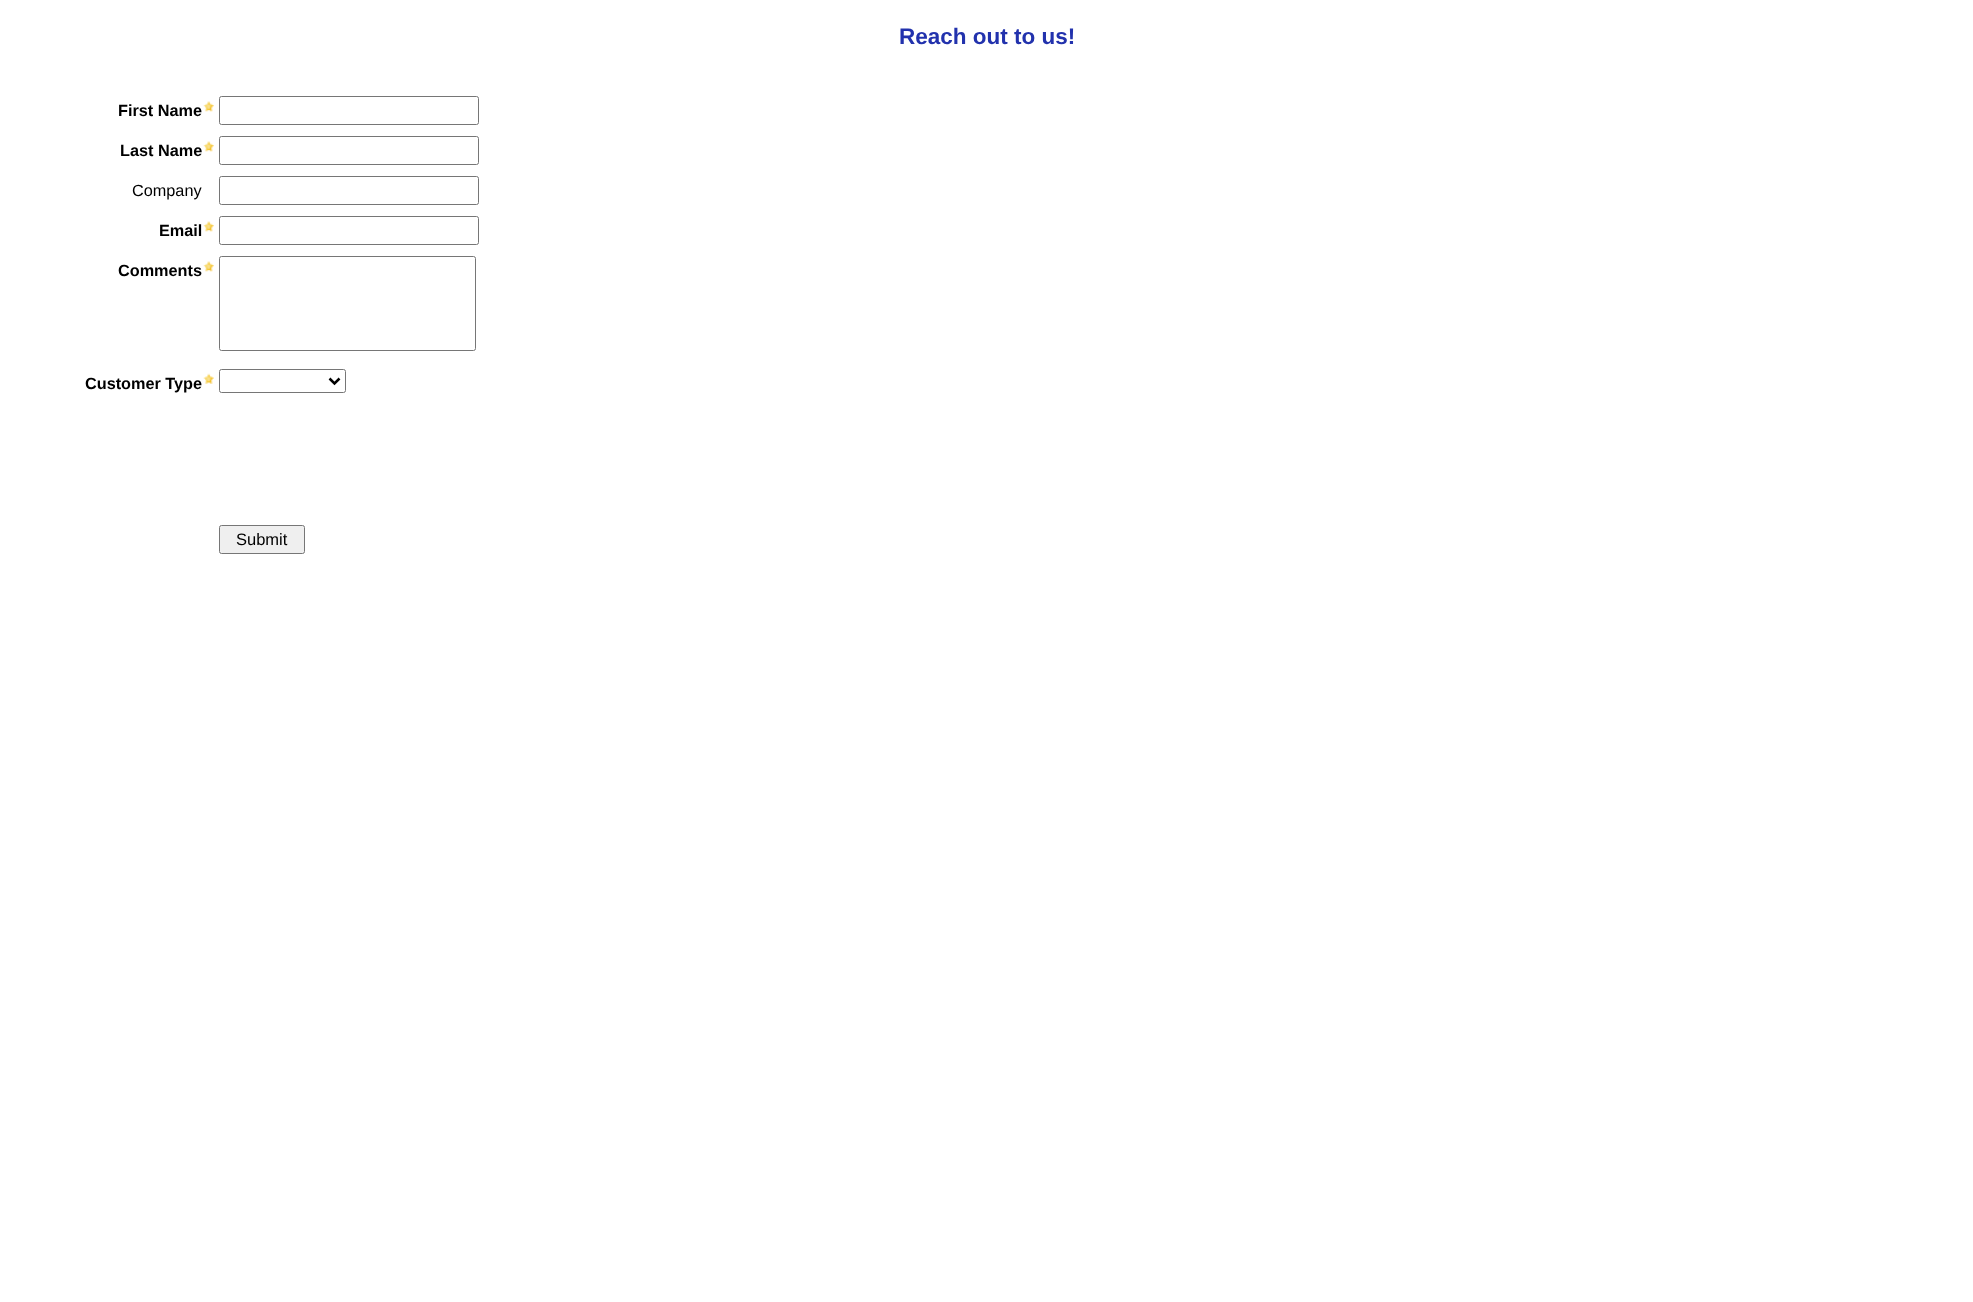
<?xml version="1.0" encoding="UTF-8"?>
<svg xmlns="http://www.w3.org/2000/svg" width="1973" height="1302">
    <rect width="100%" height="100%" fill="#FFFFFF"/>
    <text x="899" y="44" font-family="Liberation Sans" font-size="22.5" font-weight="700" fill="#2232AD">Reach out to us!</text>
    <image x="203" y="101" width="11" height="11" href="img_01.png"/>
    <text x="118" y="116" font-family="Liberation Sans" font-size="16.25" font-weight="700" fill="#000000">First Name</text>
    <rect x="219.5" y="96.5" width="259" height="28" rx="2" fill="none" stroke="#767676"/>
    <image x="203" y="141" width="11" height="11" href="img_01.png"/>
    <text x="120" y="156" font-family="Liberation Sans" font-size="16.25" font-weight="700" fill="#000000">Last Name</text>
    <rect x="219.5" y="136.5" width="259" height="28" rx="2" fill="none" stroke="#767676"/>
    <text x="132" y="196" font-family="Liberation Sans" font-size="16.25" fill="#000000">Company</text>
    <rect x="219.5" y="176.5" width="259" height="28" rx="2" fill="none" stroke="#767676"/>
    <image x="203" y="221" width="11" height="11" href="img_01.png"/>
    <text x="159" y="236" font-family="Liberation Sans" font-size="16.25" font-weight="700" fill="#000000">Email</text>
    <rect x="219.5" y="216.5" width="259" height="28" rx="2" fill="none" stroke="#767676"/>
    <image x="203" y="261" width="11" height="11" href="img_01.png"/>
    <text x="118" y="276" font-family="Liberation Sans" font-size="16.25" font-weight="700" fill="#000000">Comments</text>
    <rect x="219.5" y="256.5" width="256" height="94" rx="2" fill="none" stroke="#767676"/>
    <image x="203" y="373" width="11" height="11" href="img_02.png"/>
    <text x="85" y="389" font-family="Liberation Sans" font-size="16.25" font-weight="700" fill="#000000">Customer Type</text>
    <rect x="219.5" y="369.5" width="126" height="23" rx="2" fill="none" stroke="#767676"/>
    <path d="M 329.5 378.5 L 334.5 383.5 L 339.5 378.5" fill="none" stroke="#000000" stroke-width="2.5"/>
    <rect x="219.5" y="525.5" width="85" height="28" rx="2" fill="#EFEFEF" stroke="#767676"/>
    <text x="236" y="545" font-family="Liberation Sans" font-size="16.5" fill="#000000">Submit</text>
</svg>
